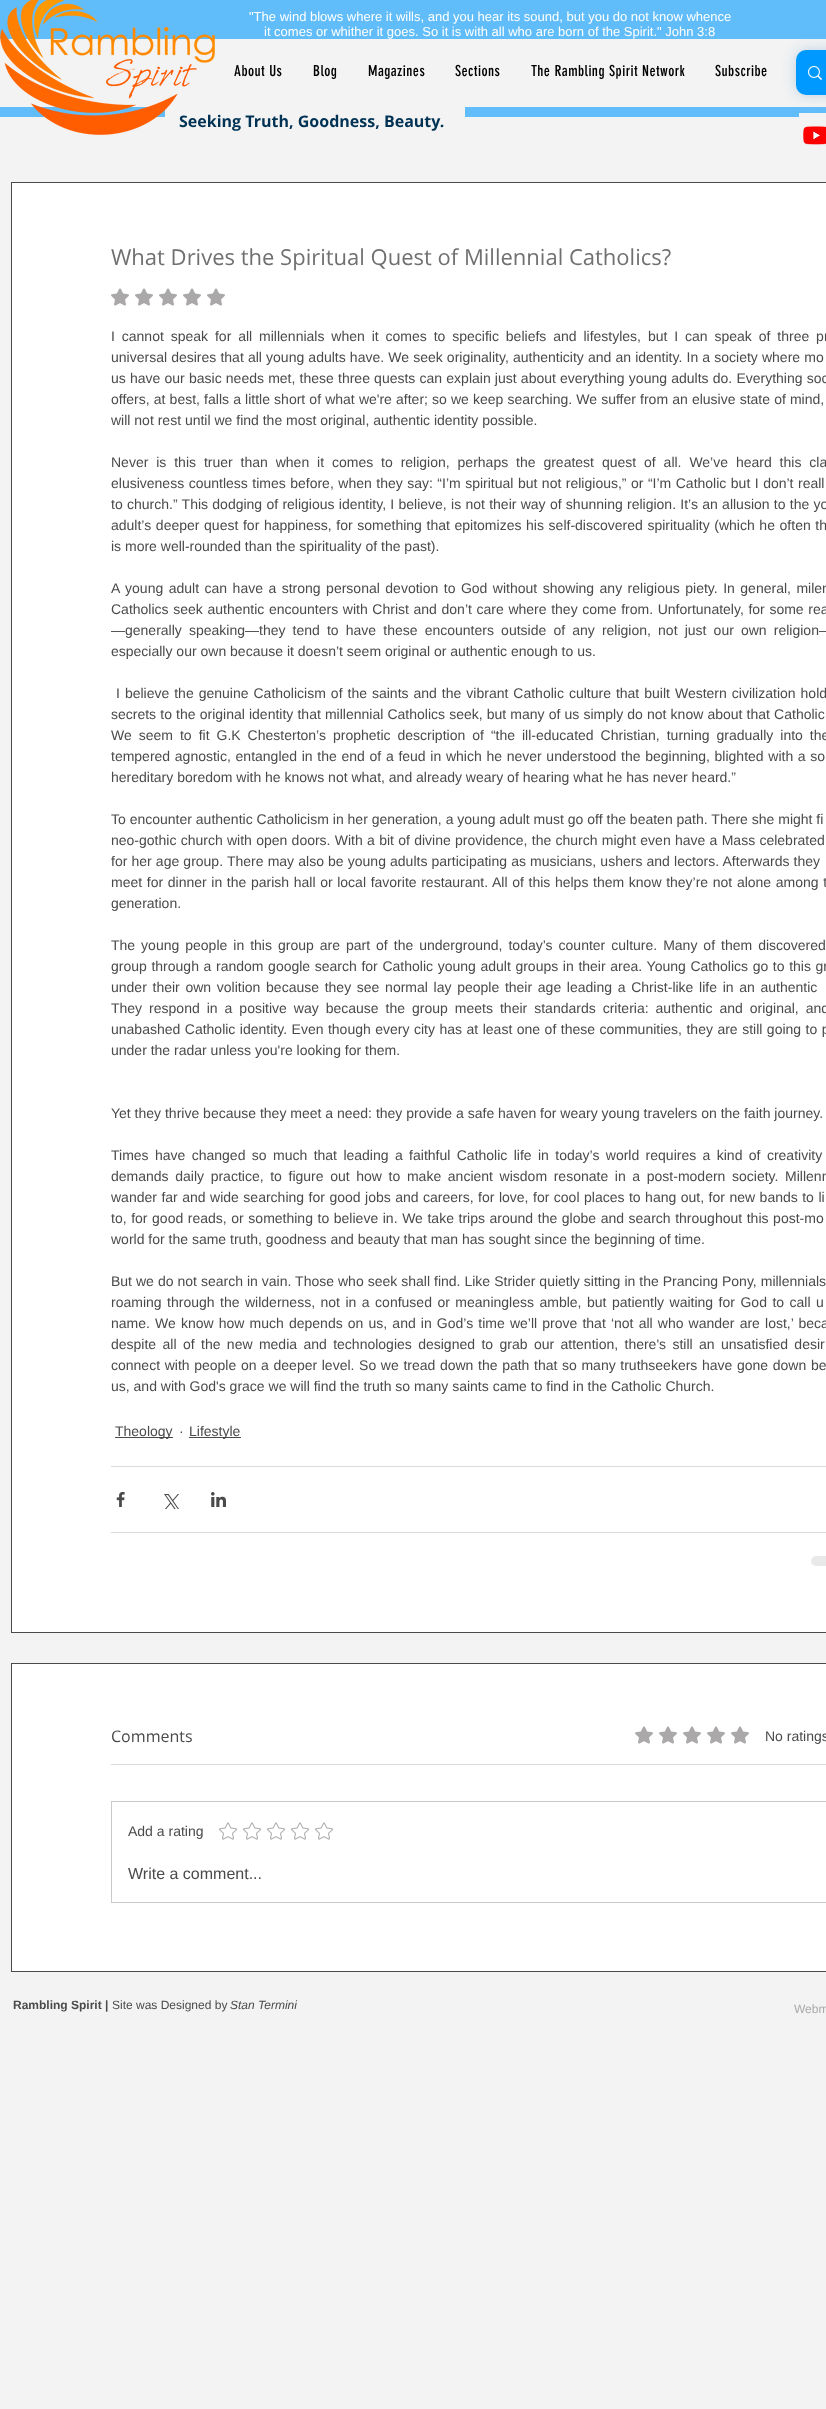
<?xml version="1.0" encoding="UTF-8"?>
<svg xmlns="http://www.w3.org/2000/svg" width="826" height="2409">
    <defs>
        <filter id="blur1" x="-50%" y="-200%" width="200%" height="500%"><feGaussianBlur stdDeviation="7"/></filter>
    </defs>
    <rect width="100%" height="100%" fill="#F3F3F3"/>
    <rect x="0" y="0" width="826" height="117" fill="#61BDFA"/>
    <rect x="0" y="39" width="826" height="68" fill="#F3F3F3"/>
    <path d="M 165 107 H 465 V 131 C 465 136.5 460.5 141 455 141 H 175 C 169.5 141 165 136.5 165 131 Z" fill="#F3F3F3"/>
    <text x="179" y="127" font-family="Open Sans" font-size="16" font-weight="700" fill="#003254">Seeking Truth, Goodness, Beauty.</text>
    <image x="0" y="0" width="215" height="135" href="img_01.png"/>
    <text x="249" y="21" font-family="Liberation Sans" font-size="13" fill="#FFFFFF">"The wind blows where it wills, and you hear its sound, but you do not know whence</text>
    <text x="264" y="36" font-family="Liberation Sans" font-size="13" fill="#FFFFFF">it comes or whither it goes. So it is with all who are born of the Spirit." John 3:8</text>
    <path d="M 799 113 H 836 V 148 C 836 153.5 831.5 158 826 158 H 809 C 803.5 158 799 153.5 799 148 Z" fill="#F3F3F3"/>
    <rect x="796" y="50" width="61" height="45" rx="10" fill="#0065A9" fill-opacity="0.23" filter="url(#blur1)"/>
    <rect x="796" y="50" width="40" height="45" rx="10" fill="#0099FF"/>
    <image x="808" y="66" width="14" height="14" href="img_02.png"/>
    <text x="234" y="76" font-family="'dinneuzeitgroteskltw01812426'" font-size="15" letter-spacing="0.45" fill="#000000">About Us</text>
    <text x="313" y="76" font-family="'dinneuzeitgroteskltw01812426'" font-size="15" letter-spacing="0.45" fill="#000000">Blog</text>
    <text x="368" y="76" font-family="'dinneuzeitgroteskltw01812426'" font-size="15" letter-spacing="0.45" fill="#000000">Magazines</text>
    <text x="455" y="76" font-family="'dinneuzeitgroteskltw01812426'" font-size="15" letter-spacing="0.45" fill="#000000">Sections</text>
    <text x="531" y="76" font-family="'dinneuzeitgroteskltw01812426'" font-size="15" letter-spacing="0.45" fill="#000000">The Rambling Spirit Network</text>
    <text x="715" y="76" font-family="'dinneuzeitgroteskltw01812426'" font-size="15" letter-spacing="0.45" fill="#000000">Subscribe</text>
    <image x="803" y="126" width="23" height="19" href="img_03.png"/>
    <rect x="11.5" y="182.5" width="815" height="1450" fill="#FFFFFF" stroke="#4A4A4A"/>
    <text x="111" y="265" font-family="Open Sans" font-size="22" fill="#717070">What Drives the Spiritual Quest of Millennial Catholics?</text>
    <image x="111" y="288" width="18" height="18" href="img_04.png"/>
    <image x="135" y="288" width="18" height="18" href="img_04.png"/>
    <image x="159" y="288" width="18" height="18" href="img_04.png"/>
    <image x="183" y="288" width="18" height="18" href="img_04.png"/>
    <image x="207" y="288" width="18" height="18" href="img_04.png"/>
    <text font-family="Liberation Sans" font-size="14" fill="#4A4A4A">
        <tspan x="111" y="341" word-spacing="3">I cannot speak for all millennials when it comes to specific beliefs and lifestyles, but I can speak of three pr</tspan>
        <tspan x="111" y="362" word-spacing="0.25">universal desires that all young adults have. We seek originality, authenticity and an identity. In a society where mo</tspan>
        <tspan x="111" y="383" word-spacing="0.3">us have our basic needs met, these three quests can explain just about everything young adults do. Everything soc</tspan>
        <tspan x="111" y="404" word-spacing="0.25">offers, at best, falls a little short of what we're after; so we keep searching. We suffer from an elusive state of mind,</tspan>
        <tspan x="111" y="425">will not rest until we find the most original, authentic identity possible.</tspan>
    </text>
    <text font-family="Liberation Sans" font-size="14" fill="#4A4A4A">
        <tspan x="111" y="467" word-spacing="4">Never is this truer than when it comes to religion, perhaps the greatest quest of all. We’ve heard this cla</tspan>
        <tspan x="111" y="488" word-spacing="0.6">elusiveness countless times before, when they say: “I’m spiritual but not religious,” or “I’m Catholic but I don’t reall</tspan>
        <tspan x="111" y="509" word-spacing="0.4">to church.” This dodging of religious identity, I believe, is not their way of shunning religion. It’s an allusion to the yo</tspan>
        <tspan x="111" y="530" word-spacing="0.75">adult’s deeper quest for happiness, for something that epitomizes his self-discovered spirituality (which he often th</tspan>
        <tspan x="111" y="551">is more well-rounded than the spirituality of the past).</tspan>
    </text>
    <text font-family="Liberation Sans" font-size="14" fill="#4A4A4A">
        <tspan x="111" y="593" word-spacing="1.6">A young adult can have a strong personal devotion to God without showing any religious piety. In general, milen</tspan>
        <tspan x="111" y="614" word-spacing="0.75">Catholics seek authentic encounters with Christ and don’t care where they come from. Unfortunately, for some rea</tspan>
        <tspan x="111" y="635" word-spacing="3.25">—generally speaking—they tend to have these encounters outside of any religion, not just our own religion—</tspan>
        <tspan x="111" y="656">especially our own because it doesn’t seem original or authentic enough to us.</tspan>
    </text>
    <text x="116" y="698" word-spacing="1.1" font-family="Liberation Sans" font-size="14" fill="#4A4A4A">I believe the genuine Catholicism of the saints and the vibrant Catholic culture that built Western civilization hold</text>
    <text font-family="Liberation Sans" font-size="14" fill="#4A4A4A">
        <tspan x="111" y="719" word-spacing="0.25">secrets to the original identity that millennial Catholics seek, but many of us simply do not know about that Catholic</tspan>
        <tspan x="111" y="740" word-spacing="3.1">We seem to fit G.K Chesterton’s prophetic description of “the ill-educated Christian, turning gradually into the</tspan>
        <tspan x="111" y="761" word-spacing="0.8">tempered agnostic, entangled in the end of a feud in which he never understood the beginning, blighted with a so</tspan>
        <tspan x="111" y="782">hereditary boredom with he knows not what, and already weary of hearing what he has never heard.”</tspan>
    </text>
    <text font-family="Liberation Sans" font-size="14" fill="#4A4A4A">
        <tspan x="111" y="824">To encounter authentic Catholicism in her generation, a young adult must go off the beaten path. There she might fi</tspan>
        <tspan x="111" y="845" word-spacing="0.4">neo-gothic church with open doors. With a bit of divine providence, the church might even have a Mass celebrated</tspan>
        <tspan x="111" y="866" word-spacing="0.25">for her age group. There may also be young adults participating as musicians, ushers and lectors. Afterwards they</tspan>
        <tspan x="111" y="887" word-spacing="0.75">meet for dinner in the parish hall or local favorite restaurant. All of this helps them know they’re not alone among t</tspan>
        <tspan x="111" y="908">generation.</tspan>
    </text>
    <text font-family="Liberation Sans" font-size="14" fill="#4A4A4A">
        <tspan x="111" y="950" word-spacing="2.1">The young people in this group are part of the underground, today’s counter culture. Many of them discovered</tspan>
        <tspan x="111" y="971" word-spacing="0.75">group through a random google search for Catholic young adult groups in their area. Young Catholics go to this gr</tspan>
        <tspan x="111" y="992" word-spacing="1.8">under their own volition because they see normal lay people their age leading a Christ-like life in an authentic</tspan>
        <tspan x="111" y="1013" word-spacing="3.1">They respond in a positive way because the group meets their standards criteria: authentic and original, and</tspan>
        <tspan x="111" y="1034" word-spacing="0.6">unabashed Catholic identity. Even though every city has at least one of these communities, they are still going to p</tspan>
        <tspan x="111" y="1055">under the radar unless you're looking for them.</tspan>
    </text>
    <text x="111" y="1118" font-family="Liberation Sans" font-size="14" fill="#4A4A4A">Yet they thrive because they meet a need: they provide a safe haven for weary young travelers on the faith journey.</text>
    <text font-family="Liberation Sans" font-size="14" fill="#4A4A4A">
        <tspan x="111" y="1160" word-spacing="2.5">Times have changed so much that leading a faithful Catholic life in today’s world requires a kind of creativity</tspan>
        <tspan x="111" y="1181" word-spacing="2.75">demands daily practice, to figure out how to make ancient wisdom resonate in a post-modern society. Millenn</tspan>
        <tspan x="111" y="1202" word-spacing="0.6">wander far and wide searching for good jobs and careers, for love, for cool places to hang out, for new bands to li</tspan>
        <tspan x="111" y="1223" word-spacing="0.7">to, for good reads, or something to believe in. We take trips around the globe and search throughout this post-mo</tspan>
        <tspan x="111" y="1244">world for the same truth, goodness and beauty that man has sought since the beginning of time.</tspan>
    </text>
    <text font-family="Liberation Sans" font-size="14" fill="#4A4A4A">
        <tspan x="111" y="1286" word-spacing="0.1">But we do not search in vain. Those who seek shall find. Like Strider quietly sitting in the Prancing Pony, millennials</tspan>
        <tspan x="111" y="1307" word-spacing="1.6">roaming through the wilderness, not in a confused or meaningless amble, but patiently waiting for God to call u</tspan>
        <tspan x="111" y="1328" word-spacing="1.25">name. We know how much depends on us, and in God’s time we’ll prove that ‘not all who wander are lost,’ beca</tspan>
        <tspan x="111" y="1349" word-spacing="2.5">despite all of the new media and technologies designed to grab our attention, there's still an unsatisfied desir</tspan>
        <tspan x="111" y="1370" word-spacing="0.75">connect with people on a deeper level. So we tread down the path that so many truthseekers have gone down be</tspan>
        <tspan x="111" y="1391">us, and with God's grace we will find the truth so many saints came to find in the Catholic Church.</tspan>
    </text>
    <rect x="115" y="1437" width="58" height="1" fill="#4A4A4A"/>
    <text x="115" y="1436" font-family="Liberation Sans" font-size="14" fill="#4A4A4A">Theology</text>
    <text x="179" y="1436" font-family="Liberation Sans" font-size="14" fill="#4A4A4A">·</text>
    <rect x="189" y="1437" width="52" height="1" fill="#4A4A4A"/>
    <text x="189" y="1436" font-family="Liberation Sans" font-size="14" fill="#4A4A4A">Lifestyle</text>
    <rect x="111" y="1466" width="715" height="1" fill="#DBDBDB"/>
    <image x="116" y="1492" width="9" height="15" href="img_05.png"/>
    <image x="164" y="1494" width="15" height="15" href="img_06.png"/>
    <image x="211" y="1492" width="15" height="15" href="img_07.png"/>
    <rect x="111" y="1532" width="715" height="1" fill="#DBDBDB"/>
    <rect x="811" y="1556" width="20" height="10" rx="5" fill="#E9E9E9"/>
    <rect x="11.5" y="1663.5" width="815" height="308" fill="#FFFFFF" stroke="#4A4A4A"/>
    <text x="111" y="1742" font-family="Open Sans" font-size="16" fill="#4A4A4A">Comments</text>
    <image x="635" y="1726" width="18" height="18" href="img_04.png"/>
    <image x="659" y="1726" width="18" height="18" href="img_04.png"/>
    <image x="683" y="1726" width="18" height="18" href="img_04.png"/>
    <image x="707" y="1726" width="18" height="18" href="img_04.png"/>
    <image x="731" y="1726" width="18" height="18" href="img_04.png"/>
    <text x="765" y="1741" font-family="Liberation Sans" font-size="14" fill="#4A4A4A">No ratings</text>
    <rect x="111" y="1764" width="715" height="1" fill="#DBDBDB"/>
    <rect x="111.5" y="1801.5" width="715" height="101" fill="none" stroke="#C9C9C9"/>
    <text x="128" y="1836" font-family="Liberation Sans" font-size="14" fill="#4A4A4A">Add a rating</text>
    <image x="219" y="1822" width="18" height="18" href="img_08.png"/>
    <image x="243" y="1822" width="18" height="18" href="img_08.png"/>
    <image x="267" y="1822" width="18" height="18" href="img_08.png"/>
    <image x="291" y="1822" width="18" height="18" href="img_08.png"/>
    <image x="315" y="1822" width="18" height="18" href="img_08.png"/>
    <text x="128" y="1879" font-family="Liberation Sans" font-size="16" fill="#4A4A4A">Write a comment...</text>
    <text x="13" y="2009" font-family="Liberation Sans" font-size="12" font-weight="700" fill="#4A4A4A">Rambling Spirit |</text>
    <text x="112" y="2009" font-family="Liberation Sans" font-size="12" fill="#4A4A4A">Site was Designed by</text>
    <text x="230" y="2009" font-family="Liberation Sans" font-size="12" font-style="italic" fill="#4A4A4A">Stan Termini</text>
    <text x="794" y="2013" font-family="Liberation Sans" font-size="12" fill="#AAA8A8">Webm</text>
</svg>
